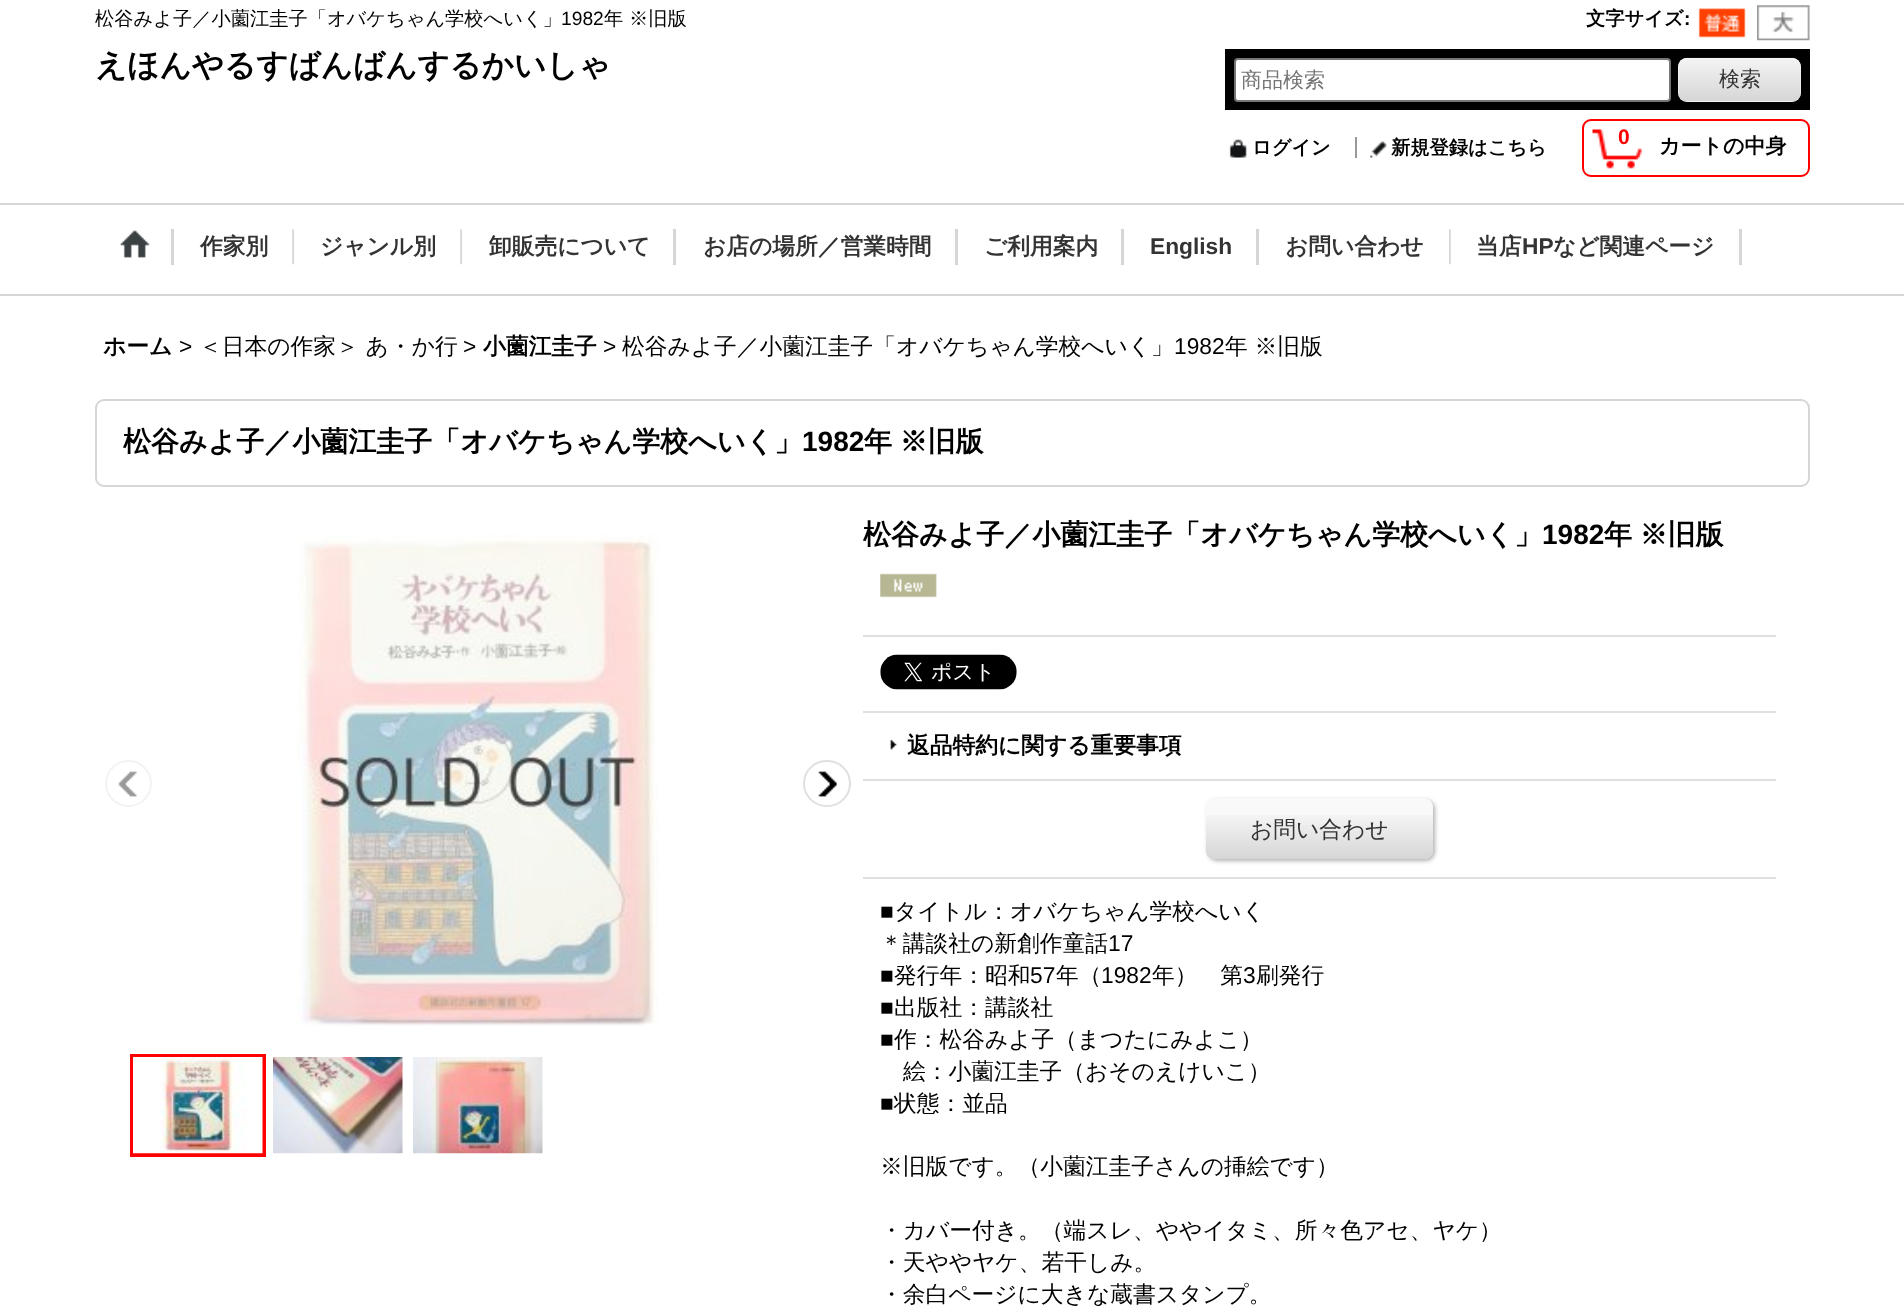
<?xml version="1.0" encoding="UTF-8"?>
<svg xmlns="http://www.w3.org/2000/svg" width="1904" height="1313">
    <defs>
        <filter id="blur1" x="-50%" y="-200%" width="200%" height="500%"><feGaussianBlur stdDeviation="2"/></filter>
    </defs>
    <rect width="100%" height="100%" fill="#FFFFFF"/>
    <rect x="0" y="203" width="1904" height="2" fill="#D6D6D6"/>
    <text x="95" y="25" font-family="WenQuanYi Zen Hei" font-size="19.25" font-weight="500" fill="#000000">松谷みよ子／小薗江圭子「オバケちゃん学校へいく」</text>
    <text x="561" y="25" font-family="Liberation Sans" font-size="19.25" fill="#000000">1982</text>
    <text x="604" y="25" font-family="WenQuanYi Zen Hei" font-size="19.25" font-weight="500" fill="#000000">年 ※旧版</text>
    <text x="1586" y="25" font-family="WenQuanYi Zen Hei" font-size="19.25" font-weight="700" fill="#000000">文字サイズ</text>
    <text x="1684" y="25" font-family="Liberation Sans" font-size="19.25" font-weight="700" fill="#000000">:</text>
    <image x="1698" y="8" width="48" height="30" href="img_01.png"/>
    <image x="1757" y="5" width="53" height="36" href="img_02.png"/>
    <text x="95" y="76" font-family="WenQuanYi Zen Hei" font-size="31.5" font-weight="700" fill="#000000">えほんやるすばんばんするかいしゃ</text>
    <rect x="1225" y="49" width="585" height="61" fill="#000000"/>
    <rect x="1235" y="59" width="435" height="42" rx="3" fill="#FFFFFF" stroke="#767676" stroke-width="2"/>
    <text x="1241" y="87" font-family="WenQuanYi Zen Hei" font-size="21" font-weight="500" fill="#757575">商品検索</text>
    <rect x="1678" y="58" width="123" height="44" rx="9" fill="#F9F9F9"/>
    <image x="1678" y="57" width="123" height="45" href="img_03.png"/>
    <text x="1719" y="86" font-family="WenQuanYi Zen Hei" font-size="21" font-weight="500" fill="#333333">検索</text>
    <image x="1229" y="139" width="18" height="19" href="img_04.png"/>
    <text x="1252" y="154" font-family="WenQuanYi Zen Hei" font-size="19.25" font-weight="700" fill="#000000">ログイン</text>
    <rect x="1355" y="137" width="2" height="21" fill="#999999"/>
    <image x="1369" y="141" width="18" height="17" href="img_05.png"/>
    <text x="1391" y="154" font-family="WenQuanYi Zen Hei" font-size="19.25" font-weight="700" fill="#000000">新規登録はこちら</text>
    <rect x="1583" y="120" width="226" height="56" rx="8" fill="none" stroke="#FF0000" stroke-width="2"/>
    <image x="1592" y="129" width="50" height="40" href="img_06.png"/>
    <text x="1618" y="144" font-family="Liberation Sans" font-size="21" font-weight="700" fill="#FF0000">0</text>
    <text x="1659" y="153" font-family="WenQuanYi Zen Hei" font-size="21" font-weight="700" fill="#000000">カートの中身</text>
    <rect x="0" y="294" width="1904" height="2" fill="#D6D6D6"/>
    <rect x="171" y="229" width="3" height="36" fill="#D6D6D6"/>
    <image x="120" y="230" width="30" height="28" href="img_07.png"/>
    <image x="292" y="229" width="2" height="36" href="img_08.png"/>
    <text x="200" y="254" font-family="WenQuanYi Zen Hei" font-size="22.75" font-weight="700" fill="#333333">作家別</text>
    <image x="460" y="229" width="2" height="36" href="img_08.png"/>
    <text x="320" y="254" font-family="WenQuanYi Zen Hei" font-size="22.75" font-weight="700" fill="#333333">ジャンル別</text>
    <rect x="673" y="229" width="3" height="36" fill="#D6D6D6"/>
    <text x="489" y="254" font-family="WenQuanYi Zen Hei" font-size="22.75" font-weight="700" fill="#333333">卸販売について</text>
    <rect x="955" y="229" width="3" height="36" fill="#D6D6D6"/>
    <text x="703" y="254" font-family="WenQuanYi Zen Hei" font-size="22.75" font-weight="700" fill="#333333">お店の場所／営業時間</text>
    <rect x="1121" y="229" width="3" height="36" fill="#D6D6D6"/>
    <text x="984" y="254" font-family="WenQuanYi Zen Hei" font-size="22.75" font-weight="700" fill="#333333">ご利用案内</text>
    <rect x="1256" y="229" width="3" height="36" fill="#D6D6D6"/>
    <text x="1150" y="254" font-family="Liberation Sans" font-size="22.75" font-weight="700" fill="#333333">English</text>
    <image x="1449" y="229" width="2" height="36" href="img_09.png"/>
    <text x="1285" y="254" font-family="WenQuanYi Zen Hei" font-size="22.75" font-weight="700" fill="#333333">お問い合わせ</text>
    <rect x="1739" y="229" width="3" height="36" fill="#D6D6D6"/>
    <text x="1476" y="254" font-family="WenQuanYi Zen Hei" font-size="22.75" font-weight="700" fill="#333333">当店</text>
    <text x="1522" y="254" font-family="Liberation Sans" font-size="22.75" font-weight="700" fill="#333333">HP</text>
    <text x="1553" y="254" font-family="WenQuanYi Zen Hei" font-size="22.75" font-weight="700" fill="#333333">など関連ページ</text>
    <text x="103" y="354" font-family="WenQuanYi Zen Hei" font-size="22.75" font-weight="700" fill="#000000">ホーム</text>
    <text x="179" y="354" font-family="Liberation Sans" font-size="22.75" fill="#000000">&gt;</text>
    <text x="199" y="354" font-family="WenQuanYi Zen Hei" font-size="22.75" font-weight="500" fill="#000000">＜日本の作家＞ あ・か行</text>
    <text x="463" y="354" font-family="Liberation Sans" font-size="22.75" fill="#000000">&gt;</text>
    <text x="483" y="354" font-family="WenQuanYi Zen Hei" font-size="22.75" font-weight="700" fill="#000000">小薗江圭子</text>
    <text x="603" y="354" font-family="Liberation Sans" font-size="22.75" fill="#000000">&gt;</text>
    <text x="622" y="354" font-family="WenQuanYi Zen Hei" font-size="22.75" font-weight="500" fill="#000000">松谷みよ子／小薗江圭子「オバケちゃん学校へいく」</text>
    <text x="1174" y="354" font-family="Liberation Sans" font-size="22.75" fill="#000000">1982</text>
    <text x="1225" y="354" font-family="WenQuanYi Zen Hei" font-size="22.75" font-weight="500" fill="#000000">年 ※旧版</text>
    <rect x="96" y="400" width="1713" height="86" rx="8" fill="none" stroke="#D6D6D6" stroke-width="2"/>
    <text x="123" y="451" font-family="WenQuanYi Zen Hei" font-size="28" font-weight="700" fill="#000000">松谷みよ子／小薗江圭子「オバケちゃん学校へいく」</text>
    <text x="802" y="451" font-family="Liberation Sans" font-size="28" font-weight="700" fill="#000000">1982</text>
    <text x="864" y="451" word-spacing="-1" font-family="WenQuanYi Zen Hei" font-size="28" font-weight="700" fill="#000000">年 ※旧版</text>
    <image x="297" y="534" width="362" height="492" href="img_10.png"/>
    <image x="118" y="771" width="19" height="26" href="img_11.png"/>
    <circle cx="128.5" cy="783.5" r="22.5" fill="none" stroke="#F3F2F4" stroke-width="2"/>
    <image x="818" y="771" width="19" height="26" href="img_12.png"/>
    <rect x="804" y="761" width="46" height="45" rx="22.5" fill="none" stroke="#E0DFE3" stroke-width="2"/>
    <rect x="132" y="1056" width="132" height="99" fill="none" stroke="#FF0000" stroke-width="4"/>
    <image x="133" y="1057" width="130" height="97" href="img_13.png"/>
    <image x="273" y="1057" width="130" height="97" href="img_14.png"/>
    <image x="413" y="1057" width="130" height="97" href="img_15.png"/>
    <text x="863" y="544" font-family="WenQuanYi Zen Hei" font-size="28" font-weight="700" fill="#000000">松谷みよ子／小薗江圭子「オバケちゃん学校へいく」</text>
    <text x="1542" y="544" font-family="Liberation Sans" font-size="28" font-weight="700" fill="#000000">1982</text>
    <text x="1604" y="544" word-spacing="-1" font-family="WenQuanYi Zen Hei" font-size="28" font-weight="700" fill="#000000">年 ※旧版</text>
    <image x="880" y="573" width="57" height="25" href="img_16.png"/>
    <rect x="863" y="635" width="913" height="2" fill="#E0DFE3"/>
    <rect x="863" y="711" width="913" height="2" fill="#E0DFE3"/>
    <image x="880" y="654" width="137" height="36" href="img_17.png"/>
    <rect x="863" y="779" width="913" height="2" fill="#E0DFE3"/>
    <image x="890" y="739" width="7" height="11" href="img_18.png"/>
    <text x="907" y="753" font-family="WenQuanYi Zen Hei" font-size="22.75" font-weight="700" fill="#000000">返品特約に関する重要事項</text>
    <rect x="863" y="877" width="913" height="2" fill="#E0DFE3"/>
    <rect x="1208" y="800" width="227" height="61" rx="9" fill="#000000" fill-opacity="0.3" filter="url(#blur1)"/>
    <rect x="1206" y="798" width="227" height="61" rx="9" fill="#F9F9F9"/>
    <image x="1206" y="815" width="227" height="44" href="img_19.png"/>
    <text x="1250" y="837" font-family="WenQuanYi Zen Hei" font-size="22.75" font-weight="500" fill="#333333">お問い合わせ</text>
    <text x="880" y="919" font-family="Liberation Sans" font-size="22.75" fill="#000000">■</text>
    <text x="894" y="919" font-family="WenQuanYi Zen Hei" font-size="22.75" font-weight="500" fill="#000000">タイトル：オバケちゃん学校へいく</text>
    <text x="880" y="951" font-family="WenQuanYi Zen Hei" font-size="22.75" font-weight="500" fill="#000000">＊講談社の新創作童話</text>
    <text x="1108" y="951" font-family="Liberation Sans" font-size="22.75" fill="#000000">17</text>
    <text x="880" y="983" font-family="Liberation Sans" font-size="22.75" fill="#000000">■</text>
    <text x="894" y="983" font-family="WenQuanYi Zen Hei" font-size="22.75" font-weight="500" fill="#000000">発行年：昭和</text>
    <text x="1030" y="983" font-family="Liberation Sans" font-size="22.75" fill="#000000">57</text>
    <text x="1056" y="983" font-family="WenQuanYi Zen Hei" font-size="22.75" font-weight="500" fill="#000000">年（</text>
    <text x="1101" y="983" font-family="Liberation Sans" font-size="22.75" fill="#000000">1982</text>
    <text x="1152" y="983" font-family="WenQuanYi Zen Hei" font-size="22.75" font-weight="500" fill="#000000">年）　第</text>
    <text x="1243" y="983" font-family="Liberation Sans" font-size="22.75" fill="#000000">3</text>
    <text x="1256" y="983" font-family="WenQuanYi Zen Hei" font-size="22.75" font-weight="500" fill="#000000">刷発行</text>
    <text x="880" y="1015" font-family="Liberation Sans" font-size="22.75" fill="#000000">■</text>
    <text x="894" y="1015" font-family="WenQuanYi Zen Hei" font-size="22.75" font-weight="500" fill="#000000">出版社：講談社</text>
    <text x="880" y="1047" font-family="Liberation Sans" font-size="22.75" fill="#000000">■</text>
    <text x="894" y="1047" font-family="WenQuanYi Zen Hei" font-size="22.75" font-weight="500" fill="#000000">作：松谷みよ子（まつたにみよこ）</text>
    <text x="903" y="1079" font-family="WenQuanYi Zen Hei" font-size="22.75" font-weight="500" fill="#000000">絵：小薗江圭子（おそのえけいこ）</text>
    <text x="880" y="1111" font-family="Liberation Sans" font-size="22.75" fill="#000000">■</text>
    <text x="894" y="1111" font-family="WenQuanYi Zen Hei" font-size="22.75" font-weight="500" fill="#000000">状態：並品</text>
    <text x="880" y="1174" font-family="WenQuanYi Zen Hei" font-size="22.75" font-weight="500" fill="#000000">※旧版です。（小薗江圭子さんの挿絵です）</text>
    <text font-family="WenQuanYi Zen Hei" font-size="22.75" font-weight="500" fill="#000000">
        <tspan x="880" y="1238">・カバー付き。（端スレ、ややイタミ、所々色アセ、ヤケ）</tspan>
        <tspan x="880" y="1270">・天ややヤケ、若干しみ。</tspan>
        <tspan x="880" y="1302">・余白ページに大きな蔵書スタンプ。</tspan>
    </text>
</svg>
